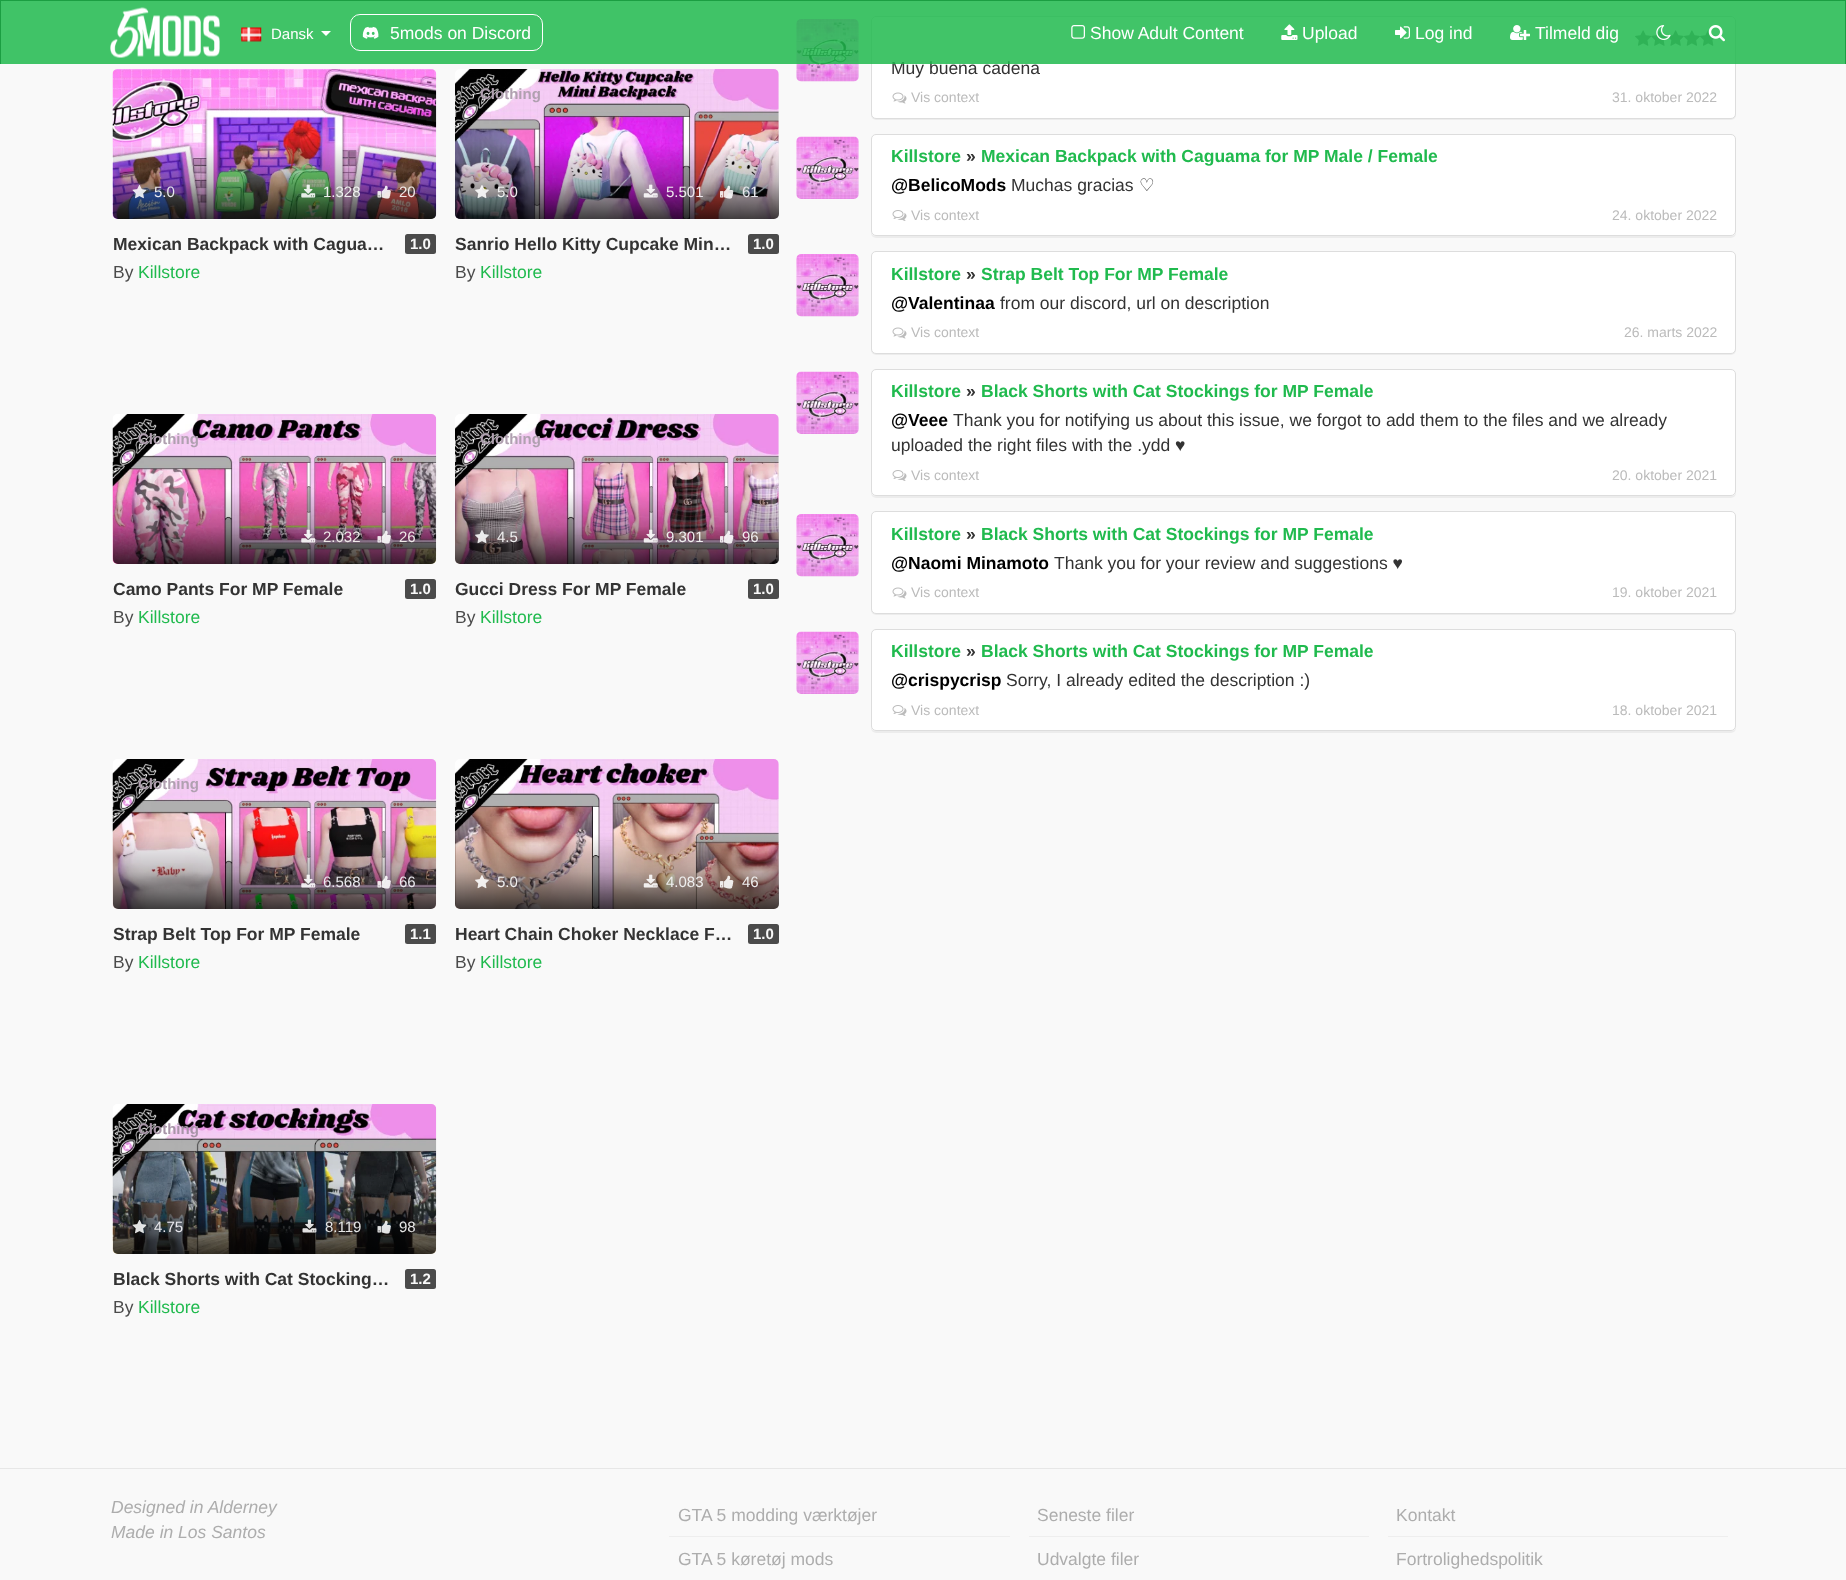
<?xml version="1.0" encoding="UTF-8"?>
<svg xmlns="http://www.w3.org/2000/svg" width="1846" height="1580">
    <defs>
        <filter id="blur1" x="-50%" y="-200%" width="200%" height="500%"><feGaussianBlur stdDeviation="0.5"/></filter>
        <linearGradient id="g1" gradientUnits="userSpaceOnUse" x1="274" y1="69" x2="274" y2="219"><stop offset="0.5" stop-color="#000000" stop-opacity="0"/><stop offset="0.75" stop-color="#000000" stop-opacity="0.25"/><stop offset="1" stop-color="#000000" stop-opacity="0.75"/></linearGradient>
        <linearGradient id="g2" gradientUnits="userSpaceOnUse" x1="617" y1="69" x2="617" y2="219"><stop offset="0.5" stop-color="#000000" stop-opacity="0"/><stop offset="0.75" stop-color="#000000" stop-opacity="0.25"/><stop offset="1" stop-color="#000000" stop-opacity="0.75"/></linearGradient>
        <linearGradient id="g3" gradientUnits="userSpaceOnUse" x1="274" y1="414" x2="274" y2="564"><stop offset="0.5" stop-color="#000000" stop-opacity="0"/><stop offset="0.75" stop-color="#000000" stop-opacity="0.25"/><stop offset="1" stop-color="#000000" stop-opacity="0.75"/></linearGradient>
        <linearGradient id="g4" gradientUnits="userSpaceOnUse" x1="617" y1="414" x2="617" y2="564"><stop offset="0.5" stop-color="#000000" stop-opacity="0"/><stop offset="0.75" stop-color="#000000" stop-opacity="0.25"/><stop offset="1" stop-color="#000000" stop-opacity="0.75"/></linearGradient>
        <linearGradient id="g5" gradientUnits="userSpaceOnUse" x1="274" y1="759" x2="274" y2="909"><stop offset="0.5" stop-color="#000000" stop-opacity="0"/><stop offset="0.75" stop-color="#000000" stop-opacity="0.25"/><stop offset="1" stop-color="#000000" stop-opacity="0.75"/></linearGradient>
        <linearGradient id="g6" gradientUnits="userSpaceOnUse" x1="617" y1="759" x2="617" y2="909"><stop offset="0.5" stop-color="#000000" stop-opacity="0"/><stop offset="0.75" stop-color="#000000" stop-opacity="0.25"/><stop offset="1" stop-color="#000000" stop-opacity="0.75"/></linearGradient>
        <linearGradient id="g7" gradientUnits="userSpaceOnUse" x1="274" y1="1104" x2="274" y2="1254"><stop offset="0.5" stop-color="#000000" stop-opacity="0"/><stop offset="0.75" stop-color="#000000" stop-opacity="0.25"/><stop offset="1" stop-color="#000000" stop-opacity="0.75"/></linearGradient>
        <clipPath id="clip1"><path d="M 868 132 H 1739 V 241 H 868 Z M 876 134 H 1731 C 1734 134 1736 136 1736 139 V 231 C 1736 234 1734 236 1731 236 H 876 C 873 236 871 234 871 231 V 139 C 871 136 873 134 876 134 Z" clip-rule="evenodd"/></clipPath>
        <clipPath id="clip2"><path d="M 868 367 H 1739 V 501 H 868 Z M 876 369 H 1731 C 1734 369 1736 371 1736 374 V 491 C 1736 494 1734 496 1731 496 H 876 C 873 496 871 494 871 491 V 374 C 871 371 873 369 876 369 Z" clip-rule="evenodd"/></clipPath>
        <clipPath id="clip3"><path d="M 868 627 H 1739 V 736 H 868 Z M 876 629 H 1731 C 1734 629 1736 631 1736 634 V 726 C 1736 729 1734 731 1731 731 H 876 C 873 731 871 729 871 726 V 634 C 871 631 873 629 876 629 Z" clip-rule="evenodd"/></clipPath>
    </defs>
    <rect width="100%" height="100%" fill="#F9F9F9"/>
    <image x="796" y="19" width="63" height="63" href="img_36.png"/>
    <rect x="871" y="18" width="865" height="102" rx="5" fill="#000000" fill-opacity="0.05" filter="url(#blur1)"/>
    <rect x="871.5" y="16.5" width="864" height="102" rx="4.5" fill="#FFFFFF" stroke="#DDDDDD"/>
    <image x="1635" y="30" width="17" height="16" href="img_37.png"/>
    <image x="1651" y="30" width="17" height="16" href="img_38.png"/>
    <image x="1667" y="30" width="17" height="16" href="img_39.png"/>
    <image x="1683" y="30" width="17" height="16" href="img_40.png"/>
    <image x="1700" y="30" width="17" height="16" href="img_37.png"/>
    <text x="891" y="74" font-family="Liberation Sans" font-size="17.5" fill="#333333">Muy buena cadena</text>
    <rect x="1" y="1" width="1844" height="63" fill="#20BA4E" fill-opacity="0.85"/>
    <rect x="0" y="0" width="1846" height="1" fill="#1B9E42"/>
    <rect x="1845" y="0" width="1" height="64" fill="#1B9E42"/>
    <rect x="0" y="0" width="1" height="64" fill="#1B9E42"/>
    <image x="110" y="7" width="110" height="51" href="img_01.png"/>
    <image x="241" y="27" width="21" height="15" href="img_02.png"/>
    <text x="271" y="39" font-family="Liberation Sans" font-size="15" fill="#FFFFFF">Dansk</text>
    <path d="M 321 31 H 331 L 326 36 Z" fill="#FFFFFF"/>
    <rect x="350.5" y="14.5" width="192" height="36" rx="9.5" fill="none" stroke="#FFFFFF"/>
    <image x="362" y="26" width="17" height="13" href="img_03.png"/>
    <text x="390" y="39" font-family="Liberation Sans" font-size="17.5" fill="#FFFFFF">5mods on Discord</text>
    <image x="1071" y="25" width="14" height="14" href="img_04.png"/>
    <text x="1090" y="39" font-family="Liberation Sans" font-size="17.5" fill="#FFFFFF">Show Adult Content</text>
    <image x="1281" y="24" width="17" height="16" href="img_05.png"/>
    <text x="1302" y="39" font-family="Liberation Sans" font-size="17.5" fill="#FFFFFF">Upload</text>
    <image x="1395" y="26" width="15" height="13" href="img_06.png"/>
    <text x="1415" y="39" font-family="Liberation Sans" font-size="17.5" fill="#FFFFFF">Log ind</text>
    <image x="1510" y="25" width="20" height="15" href="img_07.png"/>
    <text x="1535" y="39" font-family="Liberation Sans" font-size="17.5" fill="#FFFFFF">Tilmeld dig</text>
    <image x="1656" y="25" width="15" height="15" href="img_08.png"/>
    <image x="1708" y="25" width="17" height="17" href="img_09.png"/>
    <image x="112" y="69" width="325" height="150" href="img_10.png"/>
    <rect x="113" y="69" width="323" height="150" rx="5" fill="url(#g1)"/>
    <image x="132" y="185" width="15" height="14" href="img_11.png"/>
    <text x="154" y="197" font-family="Liberation Sans" font-size="15" fill="#E8E8ED">5.0</text>
    <image x="301" y="184" width="15" height="14" href="img_12.png"/>
    <text x="323" y="197" font-family="Liberation Sans" font-size="15" fill="#EFEFEF">1.328</text>
    <image x="377" y="185" width="14" height="14" href="img_13.png"/>
    <text x="399" y="197" font-family="Liberation Sans" font-size="15" fill="#EFE9E8">20</text>
    <text x="113" y="250" font-family="Liberation Sans" font-size="17.5" font-weight="700" fill="#333333">Mexican Backpack with Cagua…</text>
    <rect x="405" y="234" width="31" height="20" rx="2.5" fill="#4B4B4B"/>
    <text x="410" y="249" font-family="Liberation Sans" font-size="15" font-weight="700" fill="#F9F9F9">1.0</text>
    <text x="113" y="278" font-family="Liberation Sans" font-size="17.5" fill="#4B4B4B">By</text>
    <text x="138" y="278" font-family="Liberation Sans" font-size="17.5" fill="#20BA4E">Killstore</text>
    <image x="455" y="69" width="324" height="150" href="img_14.png"/>
    <rect x="455" y="69" width="324" height="150" rx="5" fill="url(#g2)"/>
    <text x="480" y="99" font-family="Liberation Sans" font-size="15" font-weight="700" fill="#B0A0B0">Clothing</text>
    <image x="475" y="185" width="14" height="14" href="img_15.png"/>
    <text x="497" y="197" font-family="Liberation Sans" font-size="15" fill="#EFEFEF">5.0</text>
    <image x="643" y="184" width="15" height="14" href="img_16.png"/>
    <text x="666" y="197" font-family="Liberation Sans" font-size="15" fill="#EFE8EE">5.501</text>
    <image x="720" y="185" width="14" height="14" href="img_17.png"/>
    <text x="742" y="197" font-family="Liberation Sans" font-size="15" fill="#E8E8ED">61</text>
    <text x="455" y="250" font-family="Liberation Sans" font-size="17.5" font-weight="700" fill="#333333">Sanrio Hello Kitty Cupcake Min…</text>
    <rect x="748" y="234" width="31" height="20" rx="2.5" fill="#4B4B4B"/>
    <text x="753" y="249" font-family="Liberation Sans" font-size="15" font-weight="700" fill="#F9F9F9">1.0</text>
    <text x="455" y="278" font-family="Liberation Sans" font-size="17.5" fill="#4B4B4B">By</text>
    <text x="480" y="278" font-family="Liberation Sans" font-size="17.5" fill="#20BA4E">Killstore</text>
    <image x="112" y="414" width="325" height="150" href="img_18.png"/>
    <rect x="113" y="414" width="323" height="150" rx="5" fill="url(#g3)"/>
    <text x="138" y="444" font-family="Liberation Sans" font-size="15" font-weight="700" fill="#B0A0B0">Clothing</text>
    <image x="301" y="529" width="15" height="14" href="img_19.png"/>
    <text x="323" y="542" font-family="Liberation Sans" font-size="15" fill="#EFE9E8">2.032</text>
    <image x="377" y="530" width="14" height="14" href="img_20.png"/>
    <text x="399" y="542" font-family="Liberation Sans" font-size="15" fill="#EFE9E8">26</text>
    <text x="113" y="595" font-family="Liberation Sans" font-size="17.5" font-weight="700" fill="#333333">Camo Pants For MP Female</text>
    <rect x="405" y="579" width="31" height="20" rx="2.5" fill="#4B4B4B"/>
    <text x="410" y="594" font-family="Liberation Sans" font-size="15" font-weight="700" fill="#F9F9F9">1.0</text>
    <text x="113" y="623" font-family="Liberation Sans" font-size="17.5" fill="#4B4B4B">By</text>
    <text x="138" y="623" font-family="Liberation Sans" font-size="17.5" fill="#20BA4E">Killstore</text>
    <image x="455" y="414" width="324" height="150" href="img_21.png"/>
    <rect x="455" y="414" width="324" height="150" rx="5" fill="url(#g4)"/>
    <text x="480" y="444" font-family="Liberation Sans" font-size="15" font-weight="700" fill="#B0A0B0">Clothing</text>
    <image x="475" y="530" width="14" height="14" href="img_22.png"/>
    <text x="497" y="542" font-family="Liberation Sans" font-size="15" fill="#EFEFEF">4.5</text>
    <image x="643" y="529" width="15" height="14" href="img_23.png"/>
    <text x="666" y="542" font-family="Liberation Sans" font-size="15" fill="#EFEFEF">9.301</text>
    <image x="720" y="530" width="14" height="14" href="img_24.png"/>
    <text x="742" y="542" font-family="Liberation Sans" font-size="15" fill="#EFEFEF">96</text>
    <text x="455" y="595" font-family="Liberation Sans" font-size="17.5" font-weight="700" fill="#333333">Gucci Dress For MP Female</text>
    <rect x="748" y="579" width="31" height="20" rx="2.5" fill="#4B4B4B"/>
    <text x="753" y="594" font-family="Liberation Sans" font-size="15" font-weight="700" fill="#F9F9F9">1.0</text>
    <text x="455" y="623" font-family="Liberation Sans" font-size="17.5" fill="#4B4B4B">By</text>
    <text x="480" y="623" font-family="Liberation Sans" font-size="17.5" fill="#20BA4E">Killstore</text>
    <image x="112" y="759" width="325" height="150" href="img_25.png"/>
    <rect x="113" y="759" width="323" height="150" rx="5" fill="url(#g5)"/>
    <text x="138" y="789" font-family="Liberation Sans" font-size="15" font-weight="700" fill="#B0A0B0">Clothing</text>
    <image x="301" y="874" width="15" height="14" href="img_26.png"/>
    <text x="323" y="887" font-family="Liberation Sans" font-size="15" fill="#E8E8ED">6.568</text>
    <image x="377" y="875" width="14" height="14" href="img_27.png"/>
    <text x="399" y="887" font-family="Liberation Sans" font-size="15" fill="#E8E8ED">66</text>
    <text x="113" y="940" font-family="Liberation Sans" font-size="17.5" font-weight="700" fill="#333333">Strap Belt Top For MP Female</text>
    <rect x="405" y="924" width="31" height="20" rx="2.5" fill="#4B4B4B"/>
    <text x="410" y="939" font-family="Liberation Sans" font-size="15" font-weight="700" fill="#F9F9F9">1.1</text>
    <text x="113" y="968" font-family="Liberation Sans" font-size="17.5" fill="#4B4B4B">By</text>
    <text x="138" y="968" font-family="Liberation Sans" font-size="17.5" fill="#20BA4E">Killstore</text>
    <image x="455" y="759" width="324" height="150" href="img_28.png"/>
    <rect x="455" y="759" width="324" height="150" rx="5" fill="url(#g6)"/>
    <image x="475" y="875" width="14" height="14" href="img_29.png"/>
    <text x="497" y="887" font-family="Liberation Sans" font-size="15" fill="#EFEFEF">5.0</text>
    <image x="643" y="874" width="15" height="14" href="img_30.png"/>
    <text x="666" y="887" font-family="Liberation Sans" font-size="15" fill="#EFEFEF">4.083</text>
    <image x="720" y="875" width="14" height="14" href="img_31.png"/>
    <text x="742" y="887" font-family="Liberation Sans" font-size="15" fill="#EFEFEF">46</text>
    <text x="455" y="940" font-family="Liberation Sans" font-size="17.5" font-weight="700" fill="#333333">Heart Chain Choker Necklace F…</text>
    <rect x="748" y="924" width="31" height="20" rx="2.5" fill="#4B4B4B"/>
    <text x="753" y="939" font-family="Liberation Sans" font-size="15" font-weight="700" fill="#F9F9F9">1.0</text>
    <text x="455" y="968" font-family="Liberation Sans" font-size="17.5" fill="#4B4B4B">By</text>
    <text x="480" y="968" font-family="Liberation Sans" font-size="17.5" fill="#20BA4E">Killstore</text>
    <image x="112" y="1104" width="325" height="150" href="img_32.png"/>
    <rect x="113" y="1104" width="323" height="150" rx="5" fill="url(#g7)"/>
    <text x="138" y="1134" font-family="Liberation Sans" font-size="15" font-weight="700" fill="#A895A8">Clothing</text>
    <image x="132" y="1220" width="15" height="14" href="img_33.png"/>
    <text x="154" y="1232" font-family="Liberation Sans" font-size="15" fill="#E8E8ED">4.75</text>
    <image x="302" y="1219" width="15" height="14" href="img_34.png"/>
    <text x="325" y="1232" font-family="Liberation Sans" font-size="15" fill="#E5E5E5">8.119</text>
    <image x="377" y="1220" width="14" height="14" href="img_35.png"/>
    <text x="399" y="1232" font-family="Liberation Sans" font-size="15" fill="#E5E5E5">98</text>
    <text x="113" y="1285" font-family="Liberation Sans" font-size="17.5" font-weight="700" fill="#333333">Black Shorts with Cat Stocking…</text>
    <rect x="405" y="1269" width="31" height="20" rx="2.5" fill="#4B4B4B"/>
    <text x="410" y="1284" font-family="Liberation Sans" font-size="15" font-weight="700" fill="#F9F9F9">1.2</text>
    <text x="113" y="1313" font-family="Liberation Sans" font-size="17.5" fill="#4B4B4B">By</text>
    <text x="138" y="1313" font-family="Liberation Sans" font-size="17.5" fill="#20BA4E">Killstore</text>
    <image x="892" y="92" width="15" height="12" href="img_41.png"/>
    <text x="911" y="102" font-family="Liberation Sans" font-size="14" fill="#BBBBBB">Vis context</text>
    <text x="1612" y="102" font-family="Liberation Sans" font-size="14" fill="#BBBBBB">31. oktober 2022</text>
    <image x="796" y="136" width="63" height="63" href="img_42.png"/>
    <g clip-path="url(#clip1)">
        <rect x="871" y="135" width="865" height="103" rx="5" fill="#000000" fill-opacity="0.05" filter="url(#blur1)"/>
    </g>
    <rect x="871.5" y="134.5" width="864" height="101" rx="4.5" fill="#FFFFFF" stroke="#DDDDDD"/>
    <text x="891" y="162" font-family="Liberation Sans" font-size="17.5" font-weight="700" fill="#20BA4E">Killstore</text>
    <text x="966" y="162" font-family="Liberation Sans" font-size="17.5" font-weight="700" fill="#333333">»</text>
    <text x="981" y="162" font-family="Liberation Sans" font-size="17.5" font-weight="700" fill="#20BA4E">Mexican Backpack with Caguama for MP Male / Female</text>
    <text x="891" y="191" font-family="Liberation Sans" font-size="17.5" font-weight="700" fill="#000000">@BelicoMods</text>
    <text x="1011" y="191" font-family="Liberation Sans" font-size="17.5" fill="#333333">Muchas gracias</text>
    <text x="1139" y="191" font-family="DejaVu Sans" font-size="17.5" fill="#333333">♡</text>
    <image x="892" y="210" width="15" height="11" href="img_43.png"/>
    <text x="911" y="220" font-family="Liberation Sans" font-size="14" fill="#BBBBBB">Vis context</text>
    <text x="1612" y="220" font-family="Liberation Sans" font-size="14" fill="#BBBBBB">24. oktober 2022</text>
    <image x="796" y="254" width="63" height="63" href="img_36.png"/>
    <rect x="871" y="253" width="865" height="102" rx="5" fill="#000000" fill-opacity="0.05" filter="url(#blur1)"/>
    <rect x="871.5" y="251.5" width="864" height="102" rx="4.5" fill="#FFFFFF" stroke="#DDDDDD"/>
    <text x="891" y="280" font-family="Liberation Sans" font-size="17.5" font-weight="700" fill="#20BA4E">Killstore</text>
    <text x="966" y="280" font-family="Liberation Sans" font-size="17.5" font-weight="700" fill="#333333">»</text>
    <text x="981" y="280" font-family="Liberation Sans" font-size="17.5" font-weight="700" fill="#20BA4E">Strap Belt Top For MP Female</text>
    <text x="891" y="309" font-family="Liberation Sans" font-size="17.5" font-weight="700" fill="#000000">@Valentinaa</text>
    <text x="1000" y="309" font-family="Liberation Sans" font-size="17.5" fill="#333333">from our discord, url on description</text>
    <image x="892" y="327" width="15" height="12" href="img_41.png"/>
    <text x="911" y="337" font-family="Liberation Sans" font-size="14" fill="#BBBBBB">Vis context</text>
    <text x="1624" y="337" font-family="Liberation Sans" font-size="14" fill="#BBBBBB">26. marts 2022</text>
    <image x="796" y="371" width="63" height="63" href="img_42.png"/>
    <g clip-path="url(#clip2)">
        <rect x="871" y="370" width="865" height="128" rx="5" fill="#000000" fill-opacity="0.05" filter="url(#blur1)"/>
    </g>
    <rect x="871.5" y="369.5" width="864" height="126" rx="4.5" fill="#FFFFFF" stroke="#DDDDDD"/>
    <text x="891" y="397" font-family="Liberation Sans" font-size="17.5" font-weight="700" fill="#20BA4E">Killstore</text>
    <text x="966" y="397" font-family="Liberation Sans" font-size="17.5" font-weight="700" fill="#333333">»</text>
    <text x="981" y="397" font-family="Liberation Sans" font-size="17.5" font-weight="700" fill="#20BA4E">Black Shorts with Cat Stockings for MP Female</text>
    <text x="891" y="426" font-family="Liberation Sans" font-size="17.5" font-weight="700" fill="#000000">@Veee</text>
    <text x="953" y="426" font-family="Liberation Sans" font-size="17.5" fill="#333333">Thank you for notifying us about this issue, we forgot to add them to the files and we already</text>
    <text x="891" y="451" font-family="Liberation Sans" font-size="17.5" fill="#333333">uploaded the right files with the .ydd ♥</text>
    <image x="892" y="470" width="15" height="11" href="img_43.png"/>
    <text x="911" y="480" font-family="Liberation Sans" font-size="14" fill="#BBBBBB">Vis context</text>
    <text x="1612" y="480" font-family="Liberation Sans" font-size="14" fill="#BBBBBB">20. oktober 2021</text>
    <image x="796" y="514" width="63" height="63" href="img_36.png"/>
    <rect x="871" y="513" width="865" height="102" rx="5" fill="#000000" fill-opacity="0.05" filter="url(#blur1)"/>
    <rect x="871.5" y="511.5" width="864" height="102" rx="4.5" fill="#FFFFFF" stroke="#DDDDDD"/>
    <text x="891" y="540" font-family="Liberation Sans" font-size="17.5" font-weight="700" fill="#20BA4E">Killstore</text>
    <text x="966" y="540" font-family="Liberation Sans" font-size="17.5" font-weight="700" fill="#333333">»</text>
    <text x="981" y="540" font-family="Liberation Sans" font-size="17.5" font-weight="700" fill="#20BA4E">Black Shorts with Cat Stockings for MP Female</text>
    <text x="891" y="569" font-family="Liberation Sans" font-size="17.5" font-weight="700" fill="#000000">@Naomi Minamoto</text>
    <text x="1054" y="569" font-family="Liberation Sans" font-size="17.5" fill="#333333">Thank you for your review and suggestions ♥</text>
    <image x="892" y="587" width="15" height="12" href="img_41.png"/>
    <text x="911" y="597" font-family="Liberation Sans" font-size="14" fill="#BBBBBB">Vis context</text>
    <text x="1612" y="597" font-family="Liberation Sans" font-size="14" fill="#BBBBBB">19. oktober 2021</text>
    <image x="796" y="631" width="63" height="63" href="img_42.png"/>
    <g clip-path="url(#clip3)">
        <rect x="871" y="630" width="865" height="103" rx="5" fill="#000000" fill-opacity="0.05" filter="url(#blur1)"/>
    </g>
    <rect x="871.5" y="629.5" width="864" height="101" rx="4.5" fill="#FFFFFF" stroke="#DDDDDD"/>
    <text x="891" y="657" font-family="Liberation Sans" font-size="17.5" font-weight="700" fill="#20BA4E">Killstore</text>
    <text x="966" y="657" font-family="Liberation Sans" font-size="17.5" font-weight="700" fill="#333333">»</text>
    <text x="981" y="657" font-family="Liberation Sans" font-size="17.5" font-weight="700" fill="#20BA4E">Black Shorts with Cat Stockings for MP Female</text>
    <text x="891" y="686" font-family="Liberation Sans" font-size="17.5" font-weight="700" fill="#000000">@crispycrisp</text>
    <text x="1006" y="686" font-family="Liberation Sans" font-size="17.5" fill="#333333">Sorry, I already edited the description :)</text>
    <image x="892" y="705" width="15" height="11" href="img_43.png"/>
    <text x="911" y="715" font-family="Liberation Sans" font-size="14" fill="#BBBBBB">Vis context</text>
    <text x="1612" y="715" font-family="Liberation Sans" font-size="14" fill="#BBBBBB">18. oktober 2021</text>
    <rect x="0" y="1468" width="1846" height="1" fill="#E7E7E7"/>
    <text font-family="Liberation Sans" font-size="17.5" font-style="italic" fill="#ADADAD">
        <tspan x="111" y="1513">Designed in Alderney</tspan>
        <tspan x="111" y="1538">Made in Los Santos</tspan>
    </text>
    <rect x="669" y="1536" width="341" height="1" fill="#EEEEEE"/>
    <text x="678" y="1521" font-family="Liberation Sans" font-size="17.5" fill="#ADADAD">GTA 5 modding værktøjer</text>
    <text x="678" y="1565" font-family="Liberation Sans" font-size="17.5" fill="#ADADAD">GTA 5 køretøj mods</text>
    <rect x="1029" y="1536" width="340" height="1" fill="#EEEEEE"/>
    <text x="1037" y="1521" font-family="Liberation Sans" font-size="17.5" fill="#ADADAD">Seneste filer</text>
    <text x="1037" y="1565" font-family="Liberation Sans" font-size="17.5" fill="#ADADAD">Udvalgte filer</text>
    <rect x="1388" y="1536" width="340" height="1" fill="#EEEEEE"/>
    <text x="1396" y="1521" font-family="Liberation Sans" font-size="17.5" fill="#ADADAD">Kontakt</text>
    <text x="1396" y="1565" font-family="Liberation Sans" font-size="17.5" fill="#ADADAD">Fortrolighedspolitik</text>
</svg>
